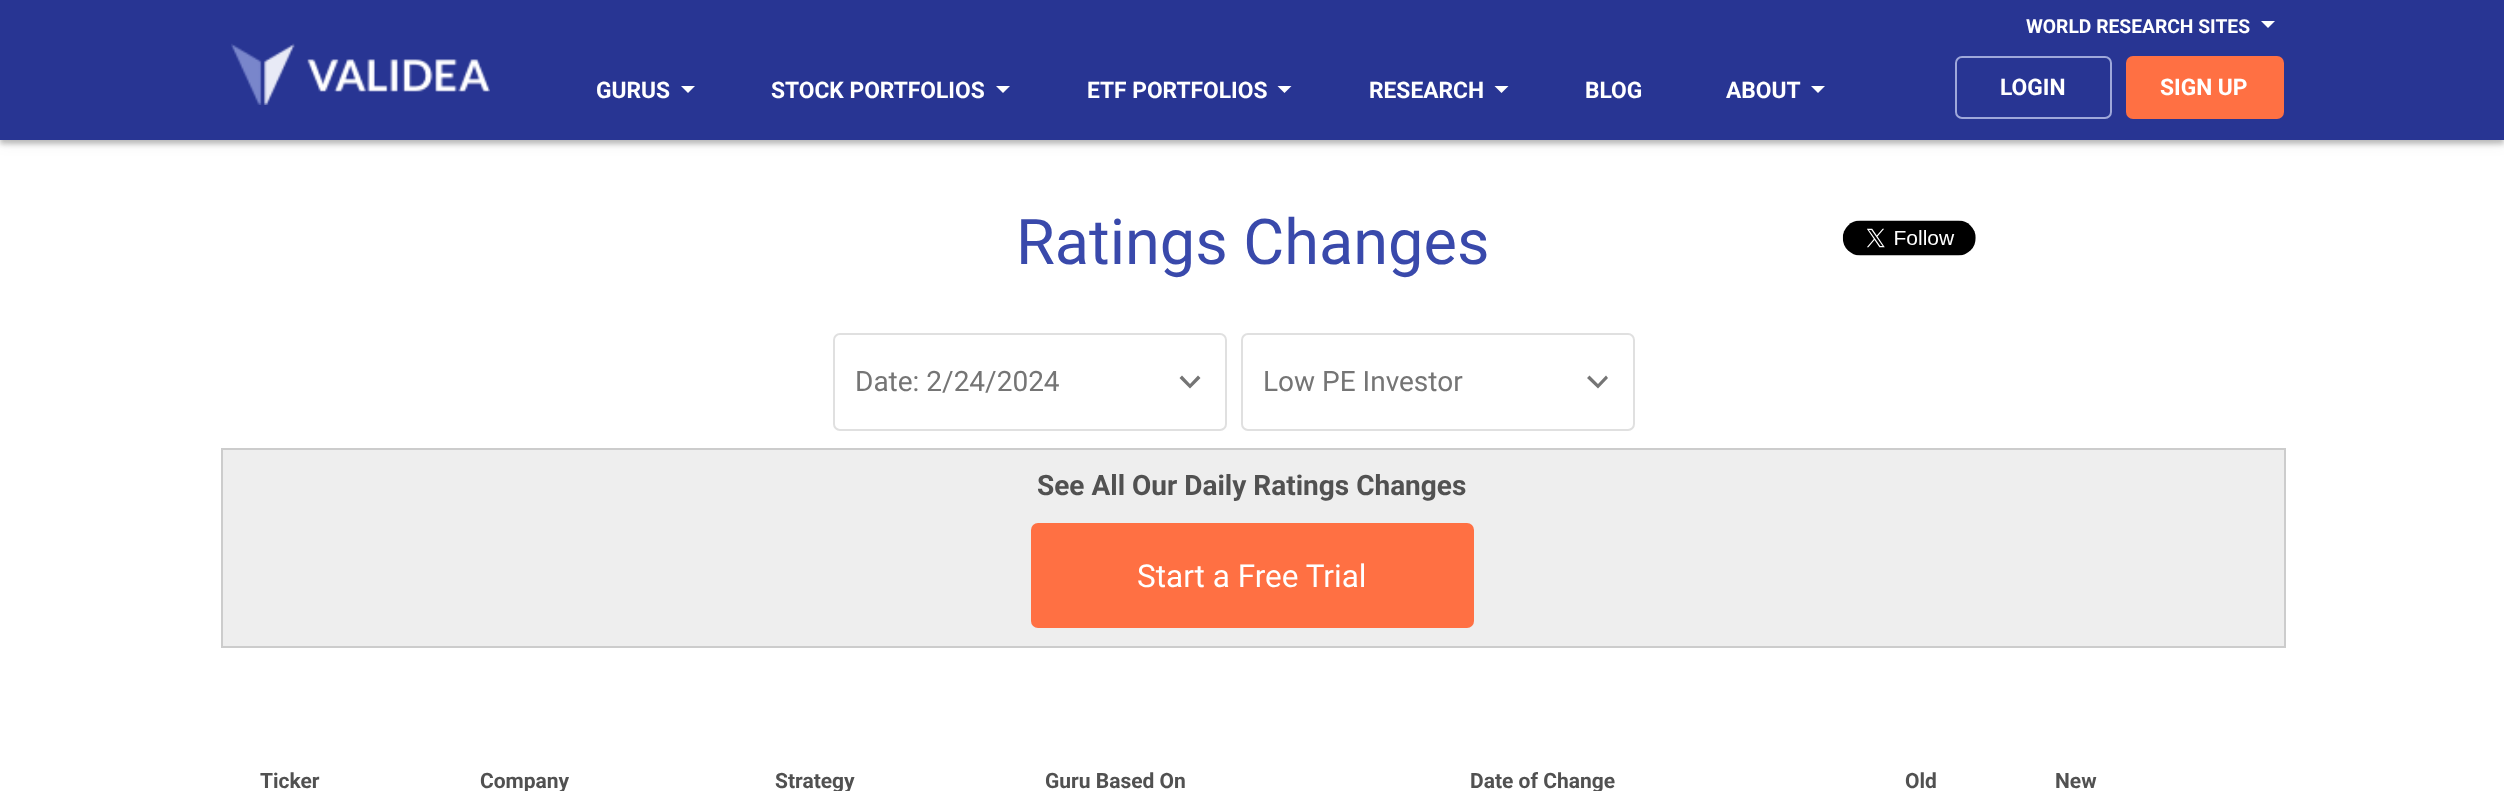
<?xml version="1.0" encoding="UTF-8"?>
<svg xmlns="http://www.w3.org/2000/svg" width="2504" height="791">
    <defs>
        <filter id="blur1" x="-50%" y="-200%" width="200%" height="500%"><feGaussianBlur stdDeviation="7"/></filter>
        <filter id="blur2" x="-50%" y="-200%" width="200%" height="500%"><feGaussianBlur stdDeviation="2.5"/></filter>
    </defs>
    <rect width="100%" height="100%" fill="#FFFFFF"/>
    <rect x="0" y="5" width="2504" height="140" fill="#000000" fill-opacity="0.05" filter="url(#blur1)"/>
    <rect x="0" y="4" width="2504" height="140" fill="#000000" fill-opacity="0.24" filter="url(#blur2)"/>
    <rect x="0" y="0" width="2504" height="140" fill="#283593"/>
    <text x="2026" y="33" font-family="Roboto" font-size="19.25" font-weight="700" fill="#FFFFFF">WORLD RESEARCH SITES</text>
    <path d="M 2261 21 H 2275 L 2268 28 Z" fill="#FFFFFF"/>
    <image x="231" y="43" width="259" height="62" href="img_01.png"/>
    <text x="596" y="98" font-family="Roboto" font-size="22.75" font-weight="700" fill="#FFFFFF">GURUS</text>
    <path d="M 681 86 H 695 L 688 93 Z" fill="#FFFFFF"/>
    <text x="771" y="98" font-family="Roboto" font-size="22.75" font-weight="700" fill="#FFFFFF">STOCK PORTFOLIOS</text>
    <path d="M 996 86 H 1010 L 1003 93 Z" fill="#FFFFFF"/>
    <text x="1087" y="98" font-family="Roboto" font-size="22.75" font-weight="700" fill="#FFFFFF">ETF PORTFOLIOS</text>
    <path d="M 1277.5 86 H 1291.5 L 1284.5 93 Z" fill="#FFFFFF"/>
    <text x="1369" y="98" font-family="Roboto" font-size="22.75" font-weight="700" fill="#FFFFFF">RESEARCH</text>
    <path d="M 1494.5 86 H 1508.5 L 1501.5 93 Z" fill="#FFFFFF"/>
    <text x="1585" y="98" font-family="Roboto" font-size="22.75" font-weight="700" fill="#FFFFFF">BLOG</text>
    <text x="1726" y="98" font-family="Roboto" font-size="22.75" font-weight="700" fill="#FFFFFF">ABOUT</text>
    <path d="M 1811 86 H 1825 L 1818 93 Z" fill="#FFFFFF"/>
    <rect x="1956" y="57" width="155" height="61" rx="6" fill="none" stroke="#9FA8DA" stroke-width="2"/>
    <text x="2000" y="95" font-family="Roboto" font-size="22.75" font-weight="700" fill="#FFFFFF">LOGIN</text>
    <rect x="2126" y="56" width="158" height="63" rx="7" fill="#FF7043"/>
    <text x="2160" y="95" font-family="Roboto" font-size="22.75" font-weight="700" fill="#FFFFFF">SIGN UP</text>
    <text x="1016" y="264" font-family="Roboto" font-size="63" fill="#3949AB">Ratings Changes</text>
    <image x="1842" y="220" width="134" height="36" href="img_02.png"/>
    <rect x="834" y="334" width="392" height="96" rx="6" fill="none" stroke="#E0E0E0" stroke-width="2"/>
    <text x="855" y="391" font-family="Roboto" font-size="28" fill="#757575">Date: 2/24/2024</text>
    <path d="M 1182 375.5 L 1190 384 L 1198 375.5 L 1200.5 378 L 1190 388.5 L 1179.5 378 Z" fill="#757575"/>
    <rect x="1242" y="334" width="392" height="96" rx="6" fill="none" stroke="#E0E0E0" stroke-width="2"/>
    <text x="1263" y="391" font-family="Roboto" font-size="28" fill="#757575">Low PE Investor</text>
    <path d="M 1589.5 375.5 L 1598 384 L 1606 375.5 L 1608 378 L 1598 388.5 L 1587 378 Z" fill="#757575"/>
    <rect x="222" y="449" width="2063" height="198" fill="#EEEEEE" stroke="#CCCCCC" stroke-width="2"/>
    <text x="1037" y="495" font-family="Roboto" font-size="28" font-weight="700" fill="#515151">See All Our Daily Ratings Changes</text>
    <rect x="1031" y="523" width="443" height="105" rx="7" fill="#FF7043"/>
    <text x="1137" y="587" font-family="Roboto" font-size="31.5" fill="#FFFFFF">Start a Free Trial</text>
    <text x="260" y="788" font-family="Roboto" font-size="21" font-weight="700" fill="#515151">Ticker</text>
    <text x="480" y="788" font-family="Roboto" font-size="21" font-weight="700" fill="#515151">Company</text>
    <text x="775" y="788" font-family="Roboto" font-size="21" font-weight="700" fill="#515151">Strategy</text>
    <text x="1045" y="788" font-family="Roboto" font-size="21" font-weight="700" fill="#515151">Guru Based On</text>
    <text x="1470" y="788" font-family="Roboto" font-size="21" font-weight="700" fill="#515151">Date of Change</text>
    <text x="1905" y="788" font-family="Roboto" font-size="21" font-weight="700" fill="#515151">Old</text>
    <text x="2055" y="788" font-family="Roboto" font-size="21" font-weight="700" fill="#515151">New</text>
</svg>
